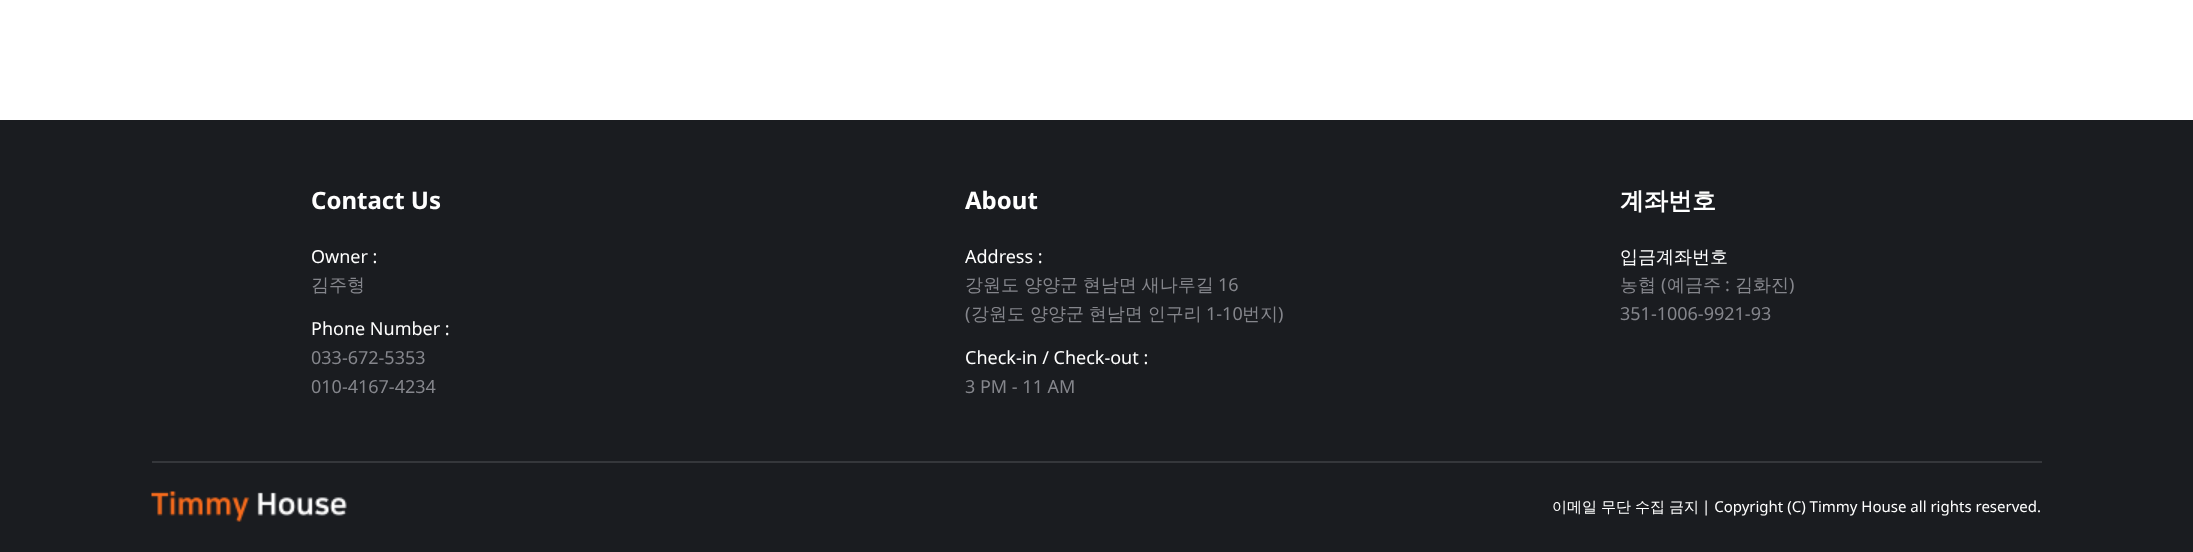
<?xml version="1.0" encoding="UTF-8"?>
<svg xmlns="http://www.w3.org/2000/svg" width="2193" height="552">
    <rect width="100%" height="100%" fill="#FFFFFF"/>
    <rect x="0" y="120" width="2193" height="432" fill="#1A1C20"/>
    <text x="311" y="209" font-family="Noto Sans" font-size="24" font-weight="700" fill="#FFFFFF">Contact Us</text>
    <text x="311" y="263" font-family="Noto Sans" font-size="18" fill="#FFFFFF">Owner :</text>
    <text x="311" y="291" font-family="WenQuanYi Zen Hei" font-size="18" font-weight="500" fill="#85868C">김주형</text>
    <text x="311" y="335" font-family="Noto Sans" font-size="18" fill="#FFFFFF">Phone Number :</text>
    <text font-family="Noto Sans" font-size="18" fill="#85868C">
        <tspan x="311" y="364">033-672-5353</tspan>
        <tspan x="311" y="393">010-4167-4234</tspan>
    </text>
    <text x="965" y="209" font-family="Noto Sans" font-size="24" font-weight="700" fill="#FFFFFF">About</text>
    <text x="965" y="263" font-family="Noto Sans" font-size="18" fill="#FFFFFF">Address :</text>
    <text x="965" y="291" word-spacing="-0.5" font-family="WenQuanYi Zen Hei" font-size="18" font-weight="500" fill="#85868C">강원도 양양군 현남면 새나루길</text>
    <text x="1218" y="291" font-family="Noto Sans" font-size="18" fill="#85868C">16</text>
    <text x="965" y="320" font-family="Noto Sans" font-size="18" fill="#85868C">(</text>
    <text x="971" y="320" word-spacing="-0.5" font-family="WenQuanYi Zen Hei" font-size="18" font-weight="500" fill="#85868C">강원도 양양군 현남면 인구리</text>
    <text x="1206" y="320" font-family="Noto Sans" font-size="18" fill="#85868C">1-10</text>
    <text x="1242" y="320" font-family="WenQuanYi Zen Hei" font-size="18" font-weight="500" fill="#85868C">번지</text>
    <text x="1278" y="320" font-family="Noto Sans" font-size="18" fill="#85868C">)</text>
    <text x="965" y="364" font-family="Noto Sans" font-size="18" fill="#FFFFFF">Check-in / Check-out :</text>
    <text x="965" y="393" font-family="Noto Sans" font-size="18" fill="#85868C">3 PM - 11 AM</text>
    <text x="1620" y="209" font-family="WenQuanYi Zen Hei" font-size="24" font-weight="700" fill="#FFFFFF">계좌번호</text>
    <text x="1620" y="263" font-family="WenQuanYi Zen Hei" font-size="18" font-weight="500" fill="#FFFFFF">입금계좌번호</text>
    <text x="1620" y="291" font-family="WenQuanYi Zen Hei" font-size="18" font-weight="500" fill="#85868C">농협</text>
    <text x="1661" y="291" font-family="Noto Sans" font-size="18" fill="#85868C">(</text>
    <text x="1667" y="291" font-family="WenQuanYi Zen Hei" font-size="18" font-weight="500" fill="#85868C">예금주</text>
    <text x="1725" y="291" font-family="Noto Sans" font-size="18" fill="#85868C">:</text>
    <text x="1735" y="291" font-family="WenQuanYi Zen Hei" font-size="18" font-weight="500" fill="#85868C">김화진</text>
    <text x="1789" y="291" font-family="Noto Sans" font-size="18" fill="#85868C">)</text>
    <text x="1620" y="320" font-family="Noto Sans" font-size="18" fill="#85868C">351-1006-9921-93</text>
    <rect x="152" y="461" width="1890" height="2" fill="#35373B"/>
    <image x="151" y="491" width="196" height="31" href="img_01.png"/>
    <text x="1552" y="512" word-spacing="-0.5" font-family="WenQuanYi Zen Hei" font-size="15" font-weight="500" fill="#FFFFFF">이메일 무단 수집 금지</text>
    <text x="1702" y="512" font-family="Noto Sans" font-size="15" fill="#FFFFFF">| Copyright (C) Timmy House all rights reserved.</text>
</svg>
